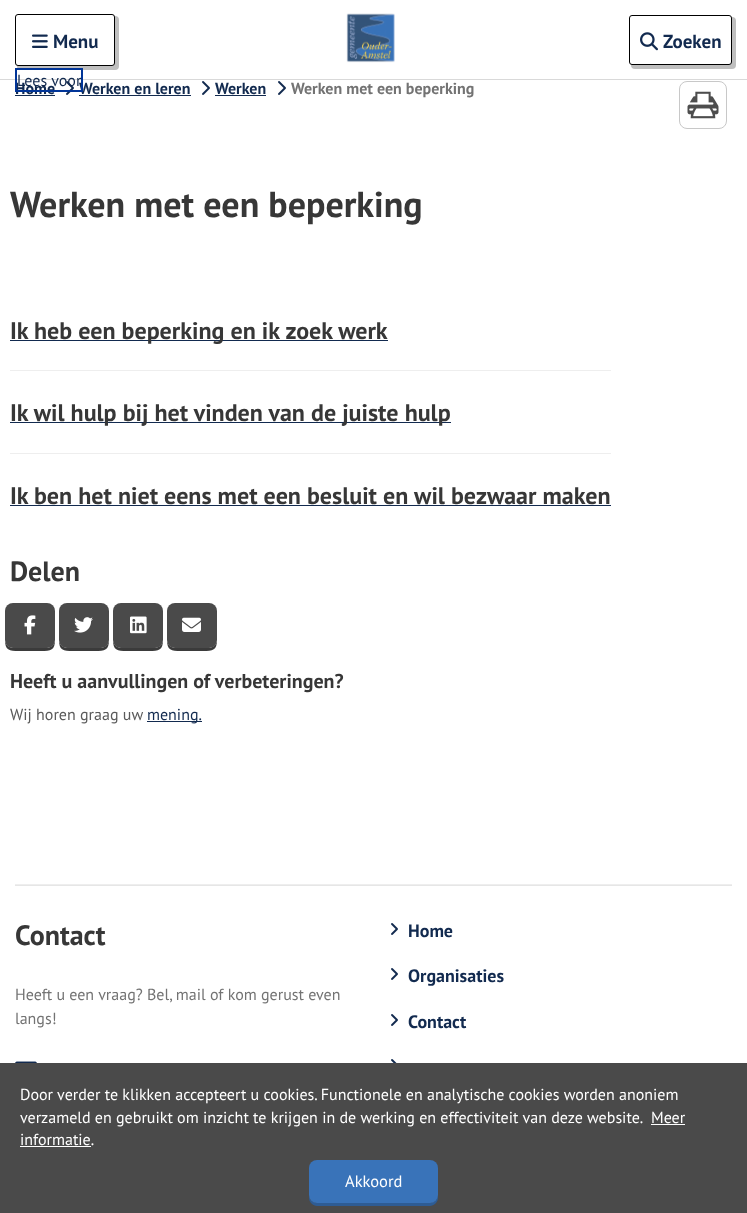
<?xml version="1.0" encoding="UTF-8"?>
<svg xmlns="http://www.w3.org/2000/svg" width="747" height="1213">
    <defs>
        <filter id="blur1" x="-50%" y="-200%" width="200%" height="500%"><feGaussianBlur stdDeviation="0.5"/></filter>
    </defs>
    <rect width="100%" height="100%" fill="#FFFFFF"/>
    <rect x="0" y="79" width="747" height="1" fill="#D9D9D9"/>
    <rect x="17" y="16" width="102" height="54" rx="4" fill="#000000" fill-opacity="0.25" filter="url(#blur1)"/>
    <rect x="15.5" y="14.5" width="99" height="51" rx="2.5" fill="#FFFFFF" stroke="#000000"/>
    <image x="32" y="34" width="16" height="14" href="img_01.png"/>
    <text x="53" y="48" font-family="PT Sans" font-size="19" font-weight="700" fill="#122A4F">Menu</text>
    <image x="346" y="13" width="49" height="50" href="img_02.png"/>
    <rect x="631" y="17" width="105" height="52" rx="4" fill="#000000" fill-opacity="0.25" filter="url(#blur1)"/>
    <rect x="629.5" y="15.5" width="102" height="49" rx="2.5" fill="#FFFFFF" stroke="#000000"/>
    <image x="640" y="32" width="18" height="19" href="img_03.png"/>
    <text x="663" y="48" font-family="PT Sans" font-size="19" font-weight="700" fill="#122A4F">Zoeken</text>
    <text x="79" y="94" font-family="PT Sans" font-size="16" font-weight="700" fill="#122A4F">Werken en leren</text>
    <rect x="81" y="68" width="2" height="24" fill="#013598"/>
    <image x="66" y="81" width="8" height="14" href="img_04.png"/>
    <text x="17" y="86" font-family="PT Sans" font-size="16" fill="#122A4F">Lees voor</text>
    <rect x="15" y="68" width="66" height="2" fill="#013598"/>
    <text x="15" y="94" font-family="PT Sans" font-size="16" font-weight="700" fill="#122A4F">Home</text>
    <rect x="15" y="90" width="66" height="2" fill="#013598"/>
    <rect x="15" y="68" width="2" height="24" fill="#013598"/>
    <rect x="15" y="95" width="40" height="1" fill="#122A4F"/>
    <rect x="79" y="95" width="112" height="1" fill="#122A4F"/>
    <image x="202" y="81" width="8" height="14" href="img_04.png"/>
    <text x="215" y="94" font-family="PT Sans" font-size="16" font-weight="700" fill="#122A4F">Werken</text>
    <rect x="215" y="95" width="51" height="1" fill="#122A4F"/>
    <image x="278" y="81" width="8" height="14" href="img_04.png"/>
    <text x="291" y="94" font-family="PT Sans" font-size="16" font-weight="700" fill="#737373">Werken met een beperking</text>
    <rect x="679.5" y="81.5" width="47" height="47" rx="7.5" fill="none" stroke="#C8C8C8"/>
    <image x="687" y="91" width="32" height="28" href="img_05.png"/>
    <text x="10" y="217" font-family="PT Sans" font-size="36" font-weight="700" fill="#373737">Werken met een beperking</text>
    <rect x="10" y="340" width="378" height="1" fill="#122A4F"/>
    <text x="10" y="339" font-family="PT Sans" font-size="24" font-weight="700" fill="#373737">Ik heb een beperking en ik zoek werk</text>
    <rect x="10" y="370" width="601" height="1" fill="#EEEEEE"/>
    <rect x="10" y="422" width="441" height="1" fill="#122A4F"/>
    <text x="10" y="421" font-family="PT Sans" font-size="24" font-weight="700" fill="#373737">Ik wil hulp bij het vinden van de juiste hulp</text>
    <rect x="10" y="453" width="601" height="1" fill="#EEEEEE"/>
    <text x="10" y="504" font-family="PT Sans" font-size="24" font-weight="700" fill="#373737">Ik ben het niet eens met een besluit en wil bezwaar maken</text>
    <rect x="10" y="505" width="601" height="1" fill="#122A4F"/>
    <text x="10" y="581" font-family="PT Sans" font-size="28" font-weight="700" fill="#373737">Delen</text>
    <path d="M 5 640 C 5 650 9 651 19 651 H 41 C 51 651 55 650 55 640 C 55 644 51 648 47 648 H 13 C 9 648 5 644 5 640 Z" fill="#3B3B3B"/>
    <rect x="5" y="603" width="50" height="45" rx="8" fill="#4A4A4A"/>
    <image x="24" y="615" width="12" height="20" href="img_06.png"/>
    <path d="M 59 640 C 59 650 63 651 73 651 H 95 C 105 651 109 650 109 640 C 109 644 105 648 101 648 H 67 C 63 648 59 644 59 640 Z" fill="#3B3B3B"/>
    <rect x="59" y="603" width="50" height="45" rx="8" fill="#4A4A4A"/>
    <image x="74" y="617" width="19" height="16" href="img_07.png"/>
    <path d="M 113 640 C 113 650 117 651 127 651 H 149 C 159 651 163 650 163 640 C 163 644 159 648 155 648 H 121 C 117 648 113 644 113 640 Z" fill="#3B3B3B"/>
    <rect x="113" y="603" width="50" height="45" rx="8" fill="#4A4A4A"/>
    <image x="130" y="616" width="17" height="18" href="img_08.png"/>
    <path d="M 167 640 C 167 650 171 651 181 651 H 203 C 213 651 217 650 217 640 C 217 644 213 648 209 648 H 175 C 171 648 167 644 167 640 Z" fill="#3B3B3B"/>
    <rect x="167" y="603" width="50" height="45" rx="8" fill="#4A4A4A"/>
    <image x="182" y="617" width="19" height="15" href="img_09.png"/>
    <text x="10" y="688" font-family="PT Sans" font-size="20" font-weight="700" fill="#373737">Heeft u aanvullingen of verbeteringen?</text>
    <text x="10" y="720" font-family="PT Sans" font-size="16" fill="#5A5A5A">Wij horen graag uw</text>
    <rect x="147" y="721" width="55" height="1" fill="#122A4F"/>
    <text x="147" y="720" font-family="PT Sans" font-size="16" fill="#122A4F">mening.</text>
    <rect x="15" y="885" width="717" height="1" fill="#E6E6E6"/>
    <rect x="15" y="884" width="717" height="1" fill="#EEEEEE"/>
    <text x="15" y="945" font-family="PT Sans" font-size="28" font-weight="700" fill="#373737">Contact</text>
    <text font-family="PT Sans" font-size="16" fill="#737373">
        <tspan x="15" y="1000">Heeft u een vraag? Bel, mail of kom gerust even</tspan>
        <tspan x="15" y="1024">langs!</tspan>
    </text>
    <image x="15" y="1061" width="22" height="2" href="img_10.png"/>
    <image x="391" y="923" width="7" height="12" href="img_11.png"/>
    <text x="408" y="937" font-family="PT Sans" font-size="18" font-weight="700" fill="#122A4F">Home</text>
    <image x="391" y="968" width="7" height="12" href="img_11.png"/>
    <text x="408" y="982" font-family="PT Sans" font-size="18" font-weight="700" fill="#122A4F">Organisaties</text>
    <image x="391" y="1014" width="7" height="12" href="img_11.png"/>
    <text x="408" y="1028" font-family="PT Sans" font-size="18" font-weight="700" fill="#122A4F">Contact</text>
    <image x="391" y="1059" width="6" height="4" href="img_12.png"/>
    <rect x="0" y="1063" width="747" height="150" fill="#4A4A4A"/>
    <text font-family="PT Sans" font-size="16" fill="#FFFFFF">
        <tspan x="20" y="1100">Door verder te klikken accepteert u cookies. Functionele en analytische cookies worden anoniem</tspan>
        <tspan x="20" y="1123">verzameld en gebruikt om inzicht te krijgen in de werking en effectiviteit van deze website.</tspan>
    </text>
    <text x="651" y="1123" font-family="PT Sans" font-size="16" fill="#FFFFFF">Meer</text>
    <rect x="651" y="1124" width="34" height="1" fill="#FFFFFF"/>
    <text x="20" y="1145" font-family="PT Sans" font-size="16" fill="#FFFFFF">informatie.</text>
    <rect x="20" y="1146" width="71" height="1" fill="#FFFFFF"/>
    <path d="M 309 1195 V 1198 C 309 1202 313 1206 317 1206 H 430 C 434 1206 438 1202 438 1198 V 1195 C 438 1199 434 1203 430 1203 H 317 C 313 1203 309 1199 309 1195 Z" fill="#2E5C94"/>
    <rect x="309" y="1160" width="129" height="43" rx="8" fill="#3973B9"/>
    <text x="345" y="1187" font-family="PT Sans" font-size="16.5" fill="#FFFFFF">Akkoord</text>
</svg>
